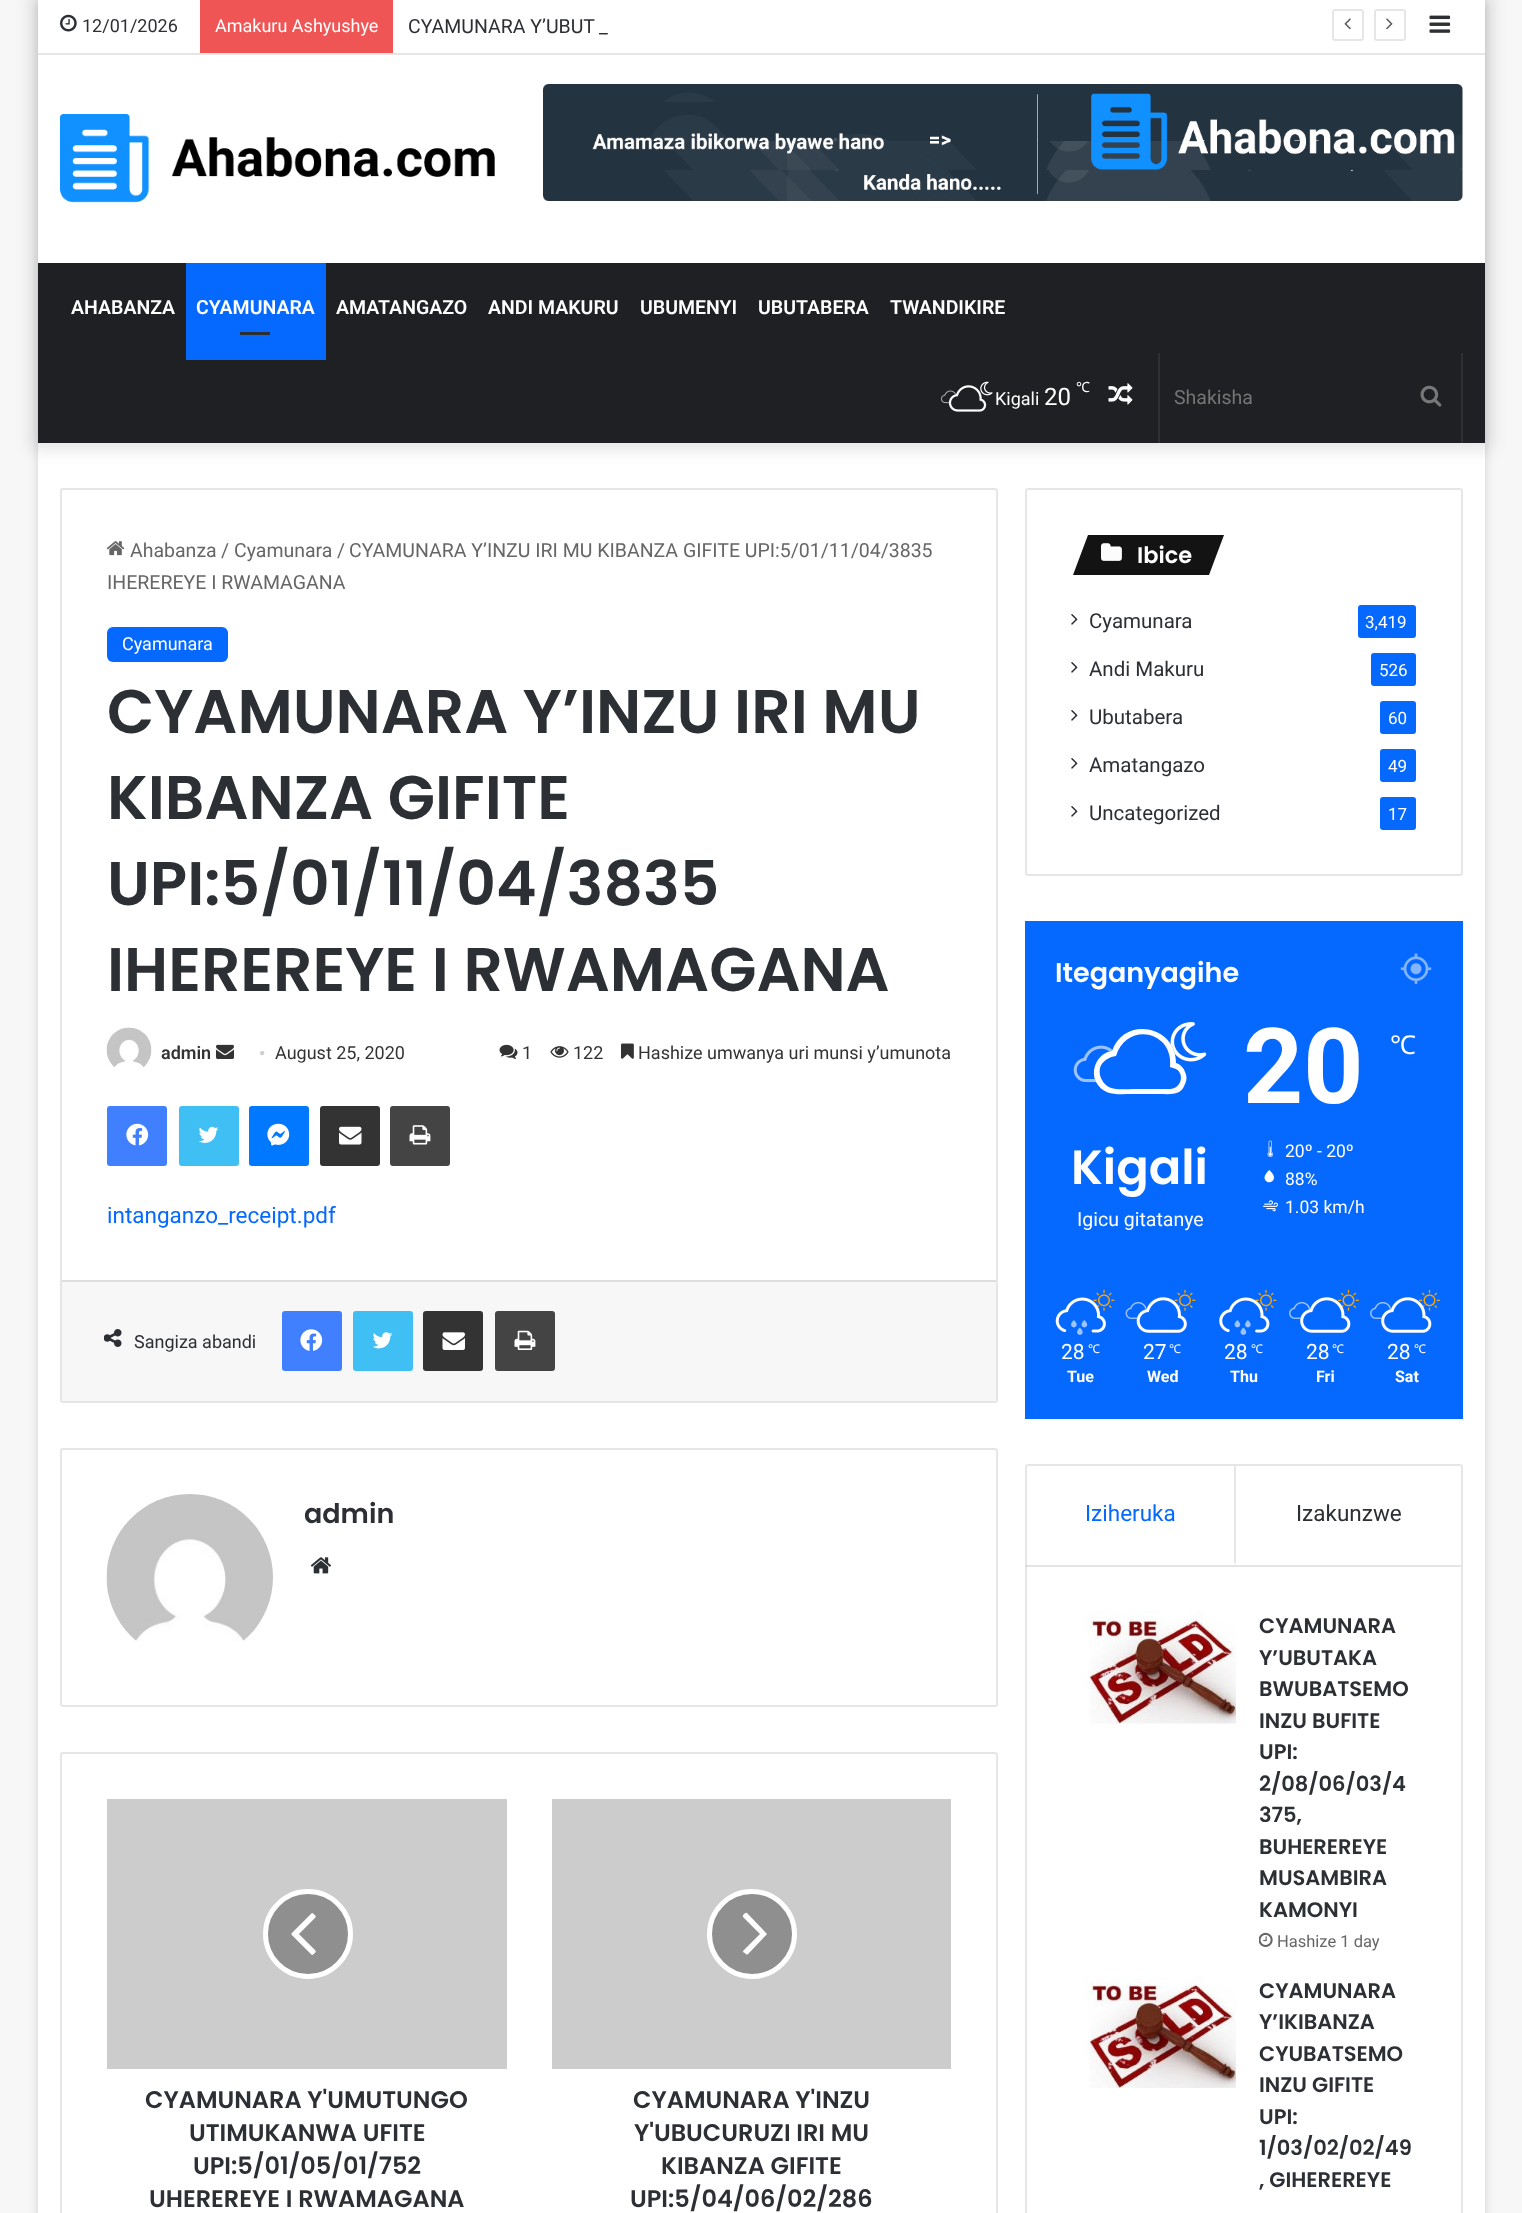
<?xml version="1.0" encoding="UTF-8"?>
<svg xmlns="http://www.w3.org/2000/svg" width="1522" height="2213">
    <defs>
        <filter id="blur1" x="-50%" y="-200%" width="200%" height="500%"><feGaussianBlur stdDeviation="5"/></filter>
        <filter id="blur2" x="-50%" y="-200%" width="200%" height="500%"><feGaussianBlur stdDeviation="7.5"/></filter>
    </defs>
    <rect width="100%" height="100%" fill="#F7F7F7"/>
    <rect x="38" y="2" width="1447" height="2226" fill="#ABABAB" fill-opacity="0.5" filter="url(#blur1)"/>
    <rect x="38" y="443" width="1447" height="1770" fill="#FFFFFF"/>
    <rect x="30" y="-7" width="1463" height="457" fill="#000000" fill-opacity="0.1" filter="url(#blur2)"/>
    <rect x="38" y="0" width="1447" height="263" fill="#FFFFFF"/>
    <rect x="38" y="53" width="1447" height="2" fill="#E6E6E6"/>
    <image x="60" y="14" width="17" height="18" href="img_01.png"/>
    <text x="82" y="32" font-family="Roboto" font-size="18" fill="#2C2F34">12/01/2026</text>
    <rect x="200" y="0" width="193" height="53" fill="#F05555"/>
    <text x="215" y="32" font-family="Roboto" font-size="18" fill="#FFFFFF">Amakuru Ashyushye</text>
    <text x="408" y="33" font-family="Roboto" font-size="19.5" fill="#2C2F34">CYAMUNARA Y’UBUT</text>
    <text x="599" y="33" font-family="Roboto" font-size="19.5" fill="#2C2F34">_</text>
    <rect x="1333" y="10" width="30" height="30" rx="2" fill="none" stroke="#E6E6E6" stroke-width="2"/>
    <image x="1344" y="18" width="7" height="12" href="img_02.png"/>
    <rect x="1375" y="10" width="30" height="30" rx="2" fill="none" stroke="#E6E6E6" stroke-width="2"/>
    <image x="1386" y="18" width="7" height="12" href="img_03.png"/>
    <image x="1429" y="15" width="22" height="18" href="img_04.png"/>
    <image x="60" y="114" width="435" height="89" href="img_05.png"/>
    <image x="543" y="84" width="920" height="117" href="img_06.png"/>
    <rect x="38" y="263" width="1447" height="180" fill="#1F2024"/>
    <text x="71" y="314" font-family="Roboto" font-size="19.5" font-weight="600" fill="#FFFFFF">AHABANZA</text>
    <rect x="186" y="263" width="140" height="97" fill="#0669FF"/>
    <text x="196" y="314" font-family="Roboto" font-size="19.5" font-weight="600" fill="#FFFFFF">CYAMUNARA</text>
    <rect x="240" y="332" width="30" height="3" fill="#2C2F34"/>
    <text x="336" y="314" font-family="Roboto" font-size="19.5" font-weight="600" fill="#FFFFFF">AMATANGAZO</text>
    <text x="488" y="314" font-family="Roboto" font-size="19.5" font-weight="600" fill="#FFFFFF">ANDI MAKURU</text>
    <text x="640" y="314" font-family="Roboto" font-size="19.5" font-weight="600" fill="#FFFFFF">UBUMENYI</text>
    <text x="758" y="314" font-family="Roboto" font-size="19.5" font-weight="600" fill="#FFFFFF">UBUTABERA</text>
    <text x="890" y="314" font-family="Roboto" font-size="19.5" font-weight="600" fill="#FFFFFF">TWANDIKIRE</text>
    <image x="980" y="381" width="13" height="15" href="img_07.png"/>
    <image x="941" y="390" width="16" height="14" href="img_09.png"/>
    <image x="948" y="394" width="11" height="10" href="img_10.png"/>
    <image x="948" y="385" width="39" height="27" href="img_08.png"/>
    <text x="995" y="405" font-family="Roboto" font-size="18" fill="#FFFFFF">Kigali</text>
    <text x="1044" y="405" font-family="Roboto" font-size="24" fill="#FFFFFF">20</text>
    <text x="1076" y="392" font-family="Noto Sans" font-size="14" fill="#FFFFFF">℃</text>
    <image x="1108" y="383" width="25" height="22" href="img_11.png"/>
    <rect x="1461" y="353" width="2" height="90" fill="#2F3033"/>
    <rect x="1158" y="353" width="2" height="90" fill="#2F3033"/>
    <text x="1174" y="404" font-family="Roboto" font-size="19.5" fill="#757575">Shakisha</text>
    <image x="1420" y="385" width="22" height="22" href="img_12.png"/>
    <rect x="61" y="489" width="936" height="913" rx="2" fill="none" stroke="#E6E6E6" stroke-width="2"/>
    <image x="106" y="541" width="19" height="15" href="img_13.png"/>
    <text x="130" y="557" font-family="Roboto" font-size="19.5" fill="#666666">Ahabanza</text>
    <text x="221" y="557" font-family="Roboto" font-size="19.5" fill="#666666">/</text>
    <text x="234" y="557" font-family="Roboto" font-size="19.5" fill="#666666">Cyamunara</text>
    <text x="337" y="557" font-family="Roboto" font-size="19.5" fill="#666666">/</text>
    <text x="349" y="557" font-family="Roboto" font-size="19.5" fill="#666666">CYAMUNARA Y’INZU IRI MU KIBANZA GIFITE UPI:5/01/11/04/3835</text>
    <text x="107" y="589" font-family="Roboto" font-size="19.5" fill="#666666">IHEREREYE I RWAMAGANA</text>
    <rect x="107" y="627" width="121" height="35" rx="6" fill="#0669FF"/>
    <text x="122" y="650" font-family="Roboto" font-size="18" fill="#FFFFFF">Cyamunara</text>
    <text font-family="Poppins" font-size="61.5" font-weight="600" fill="#2C2F34">
        <tspan x="107" y="733">CYAMUNARA Y’INZU IRI MU</tspan>
        <tspan x="107" y="819">KIBANZA GIFITE</tspan>
        <tspan x="107" y="905">UPI:5/01/11/04/3835</tspan>
        <tspan x="107" y="991">IHEREREYE I RWAMAGANA</tspan>
    </text>
    <image x="106" y="1027" width="46" height="40" href="img_14.png"/>
    <text x="161" y="1059" font-family="Roboto" font-size="18" font-weight="600" fill="#333333">admin</text>
    <image x="216" y="1044" width="18" height="15" href="img_15.png"/>
    <text x="259" y="1059" font-family="Liberation Serif" font-size="18" fill="#CCCCCC">•</text>
    <text x="275" y="1059" font-family="Roboto" font-size="18" fill="#333333">August 25, 2020</text>
    <image x="499" y="1044" width="19" height="15" href="img_16.png"/>
    <text x="522" y="1059" font-family="Roboto" font-size="18" fill="#333333">1</text>
    <image x="550" y="1046" width="19" height="12" href="img_17.png"/>
    <text x="573" y="1059" font-family="Roboto" font-size="18" fill="#333333">122</text>
    <image x="621" y="1043" width="13" height="16" href="img_18.png"/>
    <text x="638" y="1059" font-family="Roboto" font-size="18" fill="#333333">Hashize umwanya uri munsi y’umunota</text>
    <rect x="107" y="1106" width="60" height="60" rx="3" fill="#4080FF"/>
    <image x="126" y="1123" width="23" height="23" href="img_19.png"/>
    <rect x="179" y="1106" width="60" height="60" rx="3" fill="#40BFF5"/>
    <image x="198" y="1126" width="21" height="17" href="img_20.png"/>
    <rect x="249" y="1106" width="60" height="60" rx="3" fill="#0078FF"/>
    <image x="267" y="1123" width="23" height="23" href="img_21.png"/>
    <rect x="320" y="1106" width="60" height="60" rx="3" fill="#333333"/>
    <image x="339" y="1126" width="23" height="19" href="img_22.png"/>
    <rect x="390" y="1106" width="60" height="60" rx="3" fill="#444444"/>
    <image x="409" y="1125" width="22" height="20" href="img_23.png"/>
    <text x="107" y="1223" font-family="Roboto" font-size="22.5" fill="#0669FF">intanganzo_receipt.pdf</text>
    <rect x="62" y="1282" width="934" height="119" fill="#F7F7F7"/>
    <rect x="62" y="1280" width="934" height="2" fill="#DEDEDE"/>
    <image x="104" y="1329" width="18" height="18" href="img_24.png"/>
    <text x="134" y="1348" font-family="Roboto" font-size="18" fill="#2C2F34">Sangiza abandi</text>
    <rect x="282" y="1311" width="60" height="60" rx="3" fill="#4080FF"/>
    <image x="300" y="1329" width="23" height="22" href="img_25.png"/>
    <rect x="353" y="1311" width="60" height="60" rx="3" fill="#40BFF5"/>
    <image x="372" y="1332" width="21" height="17" href="img_26.png"/>
    <rect x="423" y="1311" width="60" height="60" rx="3" fill="#333333"/>
    <image x="442" y="1332" width="23" height="18" href="img_27.png"/>
    <rect x="495" y="1311" width="60" height="60" rx="3" fill="#444444"/>
    <image x="514" y="1330" width="22" height="20" href="img_28.png"/>
    <rect x="61" y="1449" width="936" height="257" rx="2" fill="none" stroke="#E6E6E6" stroke-width="2"/>
    <image x="106" y="1494" width="167" height="147" href="img_29.png"/>
    <text x="304" y="1523" font-family="Poppins" font-size="27" font-weight="600" fill="#2C2F34">admin</text>
    <image x="310" y="1557" width="21" height="17" href="img_30.png"/>
    <rect x="61" y="1753" width="936" height="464" rx="2" fill="none" stroke="#E6E6E6" stroke-width="2"/>
    <rect x="107" y="1799" width="400" height="270" fill="#CCCCCC"/>
    <circle cx="308" cy="1934" r="42.5" fill="#8F8F8F" stroke="#FFFFFF" stroke-width="5"/>
    <image x="291" y="1913" width="25" height="42" href="img_31.png"/>
    <text x="145" y="2108" font-family="Poppins" font-size="24" font-weight="600" fill="#2C2F34">CYAMUNARA Y'UMUTUNGO</text>
    <text x="189" y="2141" font-family="Poppins" font-size="24" font-weight="600" fill="#2C2F34">UTIMUKANWA UFITE</text>
    <text x="193" y="2174" font-family="Poppins" font-size="24" font-weight="600" fill="#2C2F34">UPI:5/01/05/01/752</text>
    <text x="149" y="2207" font-family="Poppins" font-size="24" font-weight="600" fill="#2C2F34">UHEREREYE I RWAMAGANA</text>
    <rect x="552" y="1799" width="399" height="270" fill="#CCCCCC"/>
    <circle cx="752" cy="1934" r="42.5" fill="#8F8F8F" stroke="#FFFFFF" stroke-width="5"/>
    <path d="M 767 1934 L 751 1951 C 748 1954 747 1956 745 1953 C 744 1953 743 1952 743 1951 L 760 1934 L 743 1917 C 742 1916 745 1912 747 1913 Z" fill="#FFFFFF"/>
    <text x="633" y="2108" font-family="Poppins" font-size="24" font-weight="600" fill="#2C2F34">CYAMUNARA Y'INZU</text>
    <text x="634" y="2141" font-family="Poppins" font-size="24" font-weight="600" fill="#2C2F34">Y'UBUCURUZI IRI MU</text>
    <text x="661" y="2174" font-family="Poppins" font-size="24" font-weight="600" fill="#2C2F34">KIBANZA GIFITE</text>
    <text x="630" y="2207" font-family="Poppins" font-size="24" font-weight="600" fill="#2C2F34">UPI:5/04/06/02/286</text>
    <rect x="1026" y="489" width="436" height="386" rx="2" fill="none" stroke="#E6E6E6" stroke-width="2"/>
    <path d="M 1088 535 H 1224 L 1209 575 H 1073 Z" fill="#131313"/>
    <image x="1101" y="543" width="21" height="18" href="img_32.png"/>
    <text x="1137" y="563" font-family="Poppins" font-size="22.5" font-weight="600" fill="#FFFFFF">Ibice</text>
    <image x="1071" y="614" width="7" height="11" href="img_33.png"/>
    <text x="1089" y="628" font-family="Roboto" font-size="20.5" fill="#2C2F34">Cyamunara</text>
    <rect x="1358" y="605" width="58" height="33" rx="3" fill="#0669FF"/>
    <text x="1365" y="628" font-family="Roboto" font-size="17" fill="#FFFFFF">3,419</text>
    <image x="1071" y="662" width="7" height="11" href="img_33.png"/>
    <text x="1089" y="676" font-family="Roboto" font-size="20.5" fill="#2C2F34">Andi Makuru</text>
    <rect x="1371" y="653" width="45" height="33" rx="3" fill="#0669FF"/>
    <text x="1379" y="676" font-family="Roboto" font-size="17" fill="#FFFFFF">526</text>
    <image x="1071" y="710" width="7" height="11" href="img_33.png"/>
    <text x="1089" y="724" font-family="Roboto" font-size="20.5" fill="#2C2F34">Ubutabera</text>
    <rect x="1380" y="701" width="36" height="33" rx="3" fill="#0669FF"/>
    <text x="1388" y="724" font-family="Roboto" font-size="17" fill="#FFFFFF">60</text>
    <image x="1071" y="758" width="7" height="11" href="img_33.png"/>
    <text x="1089" y="772" font-family="Roboto" font-size="20.5" fill="#2C2F34">Amatangazo</text>
    <rect x="1380" y="749" width="36" height="33" rx="3" fill="#0669FF"/>
    <text x="1388" y="772" font-family="Roboto" font-size="17" fill="#FFFFFF">49</text>
    <image x="1071" y="806" width="7" height="11" href="img_33.png"/>
    <text x="1089" y="820" font-family="Roboto" font-size="20.5" fill="#2C2F34">Uncategorized</text>
    <rect x="1380" y="797" width="36" height="33" rx="3" fill="#0669FF"/>
    <text x="1388" y="820" font-family="Roboto" font-size="17" fill="#FFFFFF">17</text>
    <rect x="1025" y="921" width="438" height="498" fill="#0669FF"/>
    <text x="1055" y="982" font-family="Poppins" font-size="27" font-weight="600" fill="#FFFFFF">Iteganyagihe</text>
    <image x="1400" y="953" width="32" height="31" href="img_34.png"/>
    <image x="1170" y="1022" width="37" height="40" href="img_35.png"/>
    <image x="1073" y="1045" width="40" height="38" href="img_36.png"/>
    <image x="1095" y="1043" width="80" height="40" href="img_37.png"/>
    <path d="M 1176 1063 C 1180 1064 1184 1068 1185 1072 C 1187 1076 1187 1080 1185 1084 C 1181 1096 1170 1094 1160 1094 H 1134 C 1120 1094 1104 1097 1096 1082 C 1090 1069 1098 1053 1112 1051 C 1124 1016 1176 1025 1176 1063 Z M 1170 1089 C 1181 1089 1185 1074 1176 1069 L 1170 1067 C 1174 1031 1127 1021 1116 1056 C 1109 1057 1102 1061 1100 1068 C 1099 1072 1100 1077 1102 1080 C 1108 1092 1123 1089 1134 1089 Z" fill="#FFFFFF"/>
    <text x="1071" y="1184" font-family="Poppins" font-size="48" font-weight="600" fill="#FFFFFF">Kigali</text>
    <text x="1077" y="1226" font-family="Roboto" font-size="19.5" fill="#FFFFFF">Igicu gitatanye</text>
    <text x="1243" y="1103" font-family="Roboto" font-size="105" font-weight="700" fill="#FFFFFF">20</text>
    <text x="1390" y="1054" font-family="Noto Sans" font-size="26" fill="#FFFFFF">℃</text>
    <image x="1267" y="1140" width="6" height="17" href="img_38.png"/>
    <text x="1285" y="1157" font-family="Roboto" font-size="17.5" fill="#FFFFFF">20º - 20º</text>
    <image x="1264" y="1170" width="10" height="13" href="img_39.png"/>
    <text x="1285" y="1185" font-family="Roboto" font-size="17.5" fill="#FFFFFF">88%</text>
    <image x="1263" y="1200" width="15" height="12" href="img_40.png"/>
    <text x="1285" y="1213" font-family="Roboto" font-size="17.5" fill="#FFFFFF">1.03 km/h</text>
    <image x="1093" y="1289" width="22" height="22" href="img_41.png"/>
    <image x="1096" y="1305" width="2" height="2" href="img_43.png"/>
    <image x="1055" y="1297" width="51" height="36" href="img_42.png"/>
    <image x="1071" y="1320" width="6" height="8" href="img_44.png"/>
    <image x="1081" y="1320" width="7" height="8" href="img_45.png"/>
    <image x="1077" y="1327" width="6" height="8" href="img_46.png"/>
    <text x="1061" y="1359" font-family="Roboto" font-size="21" fill="#FFFFFF">28</text>
    <text x="1088" y="1353" font-family="Noto Sans" font-size="12" fill="#FFFFFF">℃</text>
    <text x="1067" y="1382" font-family="Roboto" font-size="16" font-weight="700" fill="#FFFFFF">Tue</text>
    <image x="1174" y="1289" width="22" height="22" href="img_41.png"/>
    <image x="1125" y="1302" width="22" height="17" href="img_48.png"/>
    <image x="1136" y="1305" width="43" height="14" href="img_49.png"/>
    <image x="1136" y="1297" width="51" height="36" href="img_47.png"/>
    <text x="1143" y="1359" font-family="Roboto" font-size="21" fill="#FFFFFF">27</text>
    <text x="1169" y="1353" font-family="Noto Sans" font-size="12" fill="#FFFFFF">℃</text>
    <text x="1147" y="1382" font-family="Roboto" font-size="16" font-weight="700" fill="#FFFFFF">Wed</text>
    <image x="1255" y="1289" width="22" height="22" href="img_41.png"/>
    <image x="1258" y="1307" width="1" height="1" href="img_51.png"/>
    <image x="1219" y="1297" width="51" height="36" href="img_50.png"/>
    <image x="1234" y="1320" width="7" height="8" href="img_45.png"/>
    <image x="1245" y="1320" width="6" height="8" href="img_44.png"/>
    <image x="1240" y="1327" width="7" height="8" href="img_52.png"/>
    <text x="1224" y="1359" font-family="Roboto" font-size="21" fill="#FFFFFF">28</text>
    <text x="1251" y="1353" font-family="Noto Sans" font-size="12" fill="#FFFFFF">℃</text>
    <text x="1230" y="1382" font-family="Roboto" font-size="16" font-weight="700" fill="#FFFFFF">Thu</text>
    <image x="1338" y="1289" width="21" height="22" href="img_53.png"/>
    <image x="1289" y="1302" width="22" height="17" href="img_55.png"/>
    <image x="1300" y="1306" width="43" height="13" href="img_56.png"/>
    <image x="1300" y="1297" width="51" height="36" href="img_54.png"/>
    <text x="1306" y="1359" font-family="Roboto" font-size="21" fill="#FFFFFF">28</text>
    <text x="1332" y="1353" font-family="Noto Sans" font-size="12" fill="#FFFFFF">℃</text>
    <text x="1316" y="1382" font-family="Roboto" font-size="16" font-weight="700" fill="#FFFFFF">Fri</text>
    <image x="1419" y="1289" width="21" height="22" href="img_53.png"/>
    <image x="1370" y="1302" width="22" height="17" href="img_55.png"/>
    <image x="1381" y="1306" width="43" height="13" href="img_56.png"/>
    <image x="1381" y="1297" width="51" height="36" href="img_54.png"/>
    <text x="1387" y="1359" font-family="Roboto" font-size="21" fill="#FFFFFF">28</text>
    <text x="1414" y="1353" font-family="Noto Sans" font-size="12" fill="#FFFFFF">℃</text>
    <text x="1395" y="1382" font-family="Roboto" font-size="16" font-weight="700" fill="#FFFFFF">Sat</text>
    <rect x="1026" y="1465" width="436" height="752" rx="2" fill="none" stroke="#E6E6E6" stroke-width="2"/>
    <rect x="1026" y="1565" width="435" height="2" fill="#000000" fill-opacity="0.1"/>
    <path d="M 1236 1466 V 1564 L 1234 1563 V 1466 Z" fill="#E6E6E6"/>
    <text x="1085" y="1521" font-family="Roboto" font-size="22.5" fill="#0669FF">Iziheruka</text>
    <text x="1296" y="1521" font-family="Roboto" font-size="22.5" fill="#2C2F34">Izakunzwe</text>
    <image x="1083" y="1611" width="153" height="113" href="img_57.png"/>
    <text font-family="Poppins" font-size="21" font-weight="600" fill="#2C2F34">
        <tspan x="1259" y="1633">CYAMUNARA</tspan>
        <tspan x="1259" y="1665">Y’UBUTAKA</tspan>
        <tspan x="1259" y="1696">BWUBATSEMO</tspan>
        <tspan x="1259" y="1728">INZU BUFITE</tspan>
        <tspan x="1259" y="1759">UPI:</tspan>
        <tspan x="1259" y="1791">2/08/06/03/4</tspan>
        <tspan x="1259" y="1822">375,</tspan>
        <tspan x="1259" y="1854">BUHEREREYE</tspan>
        <tspan x="1259" y="1885">MUSAMBIRA</tspan>
        <tspan x="1259" y="1917">KAMONYI</tspan>
    </text>
    <image x="1259" y="1932" width="14" height="15" href="img_58.png"/>
    <text x="1277" y="1947" font-family="Roboto" font-size="16.5" fill="#666666">Hashize 1 day</text>
    <image x="1083" y="1976" width="153" height="112" href="img_59.png"/>
    <text font-family="Poppins" font-size="21" font-weight="600" fill="#2C2F34">
        <tspan x="1259" y="1998">CYAMUNARA</tspan>
        <tspan x="1259" y="2029">Y’IKIBANZA</tspan>
        <tspan x="1259" y="2061">CYUBATSEMO</tspan>
        <tspan x="1259" y="2092">INZU GIFITE</tspan>
        <tspan x="1259" y="2124">UPI:</tspan>
        <tspan x="1259" y="2155">1/03/02/02/49</tspan>
        <tspan x="1259" y="2187">, GIHEREREYE</tspan>
    </text>
</svg>
